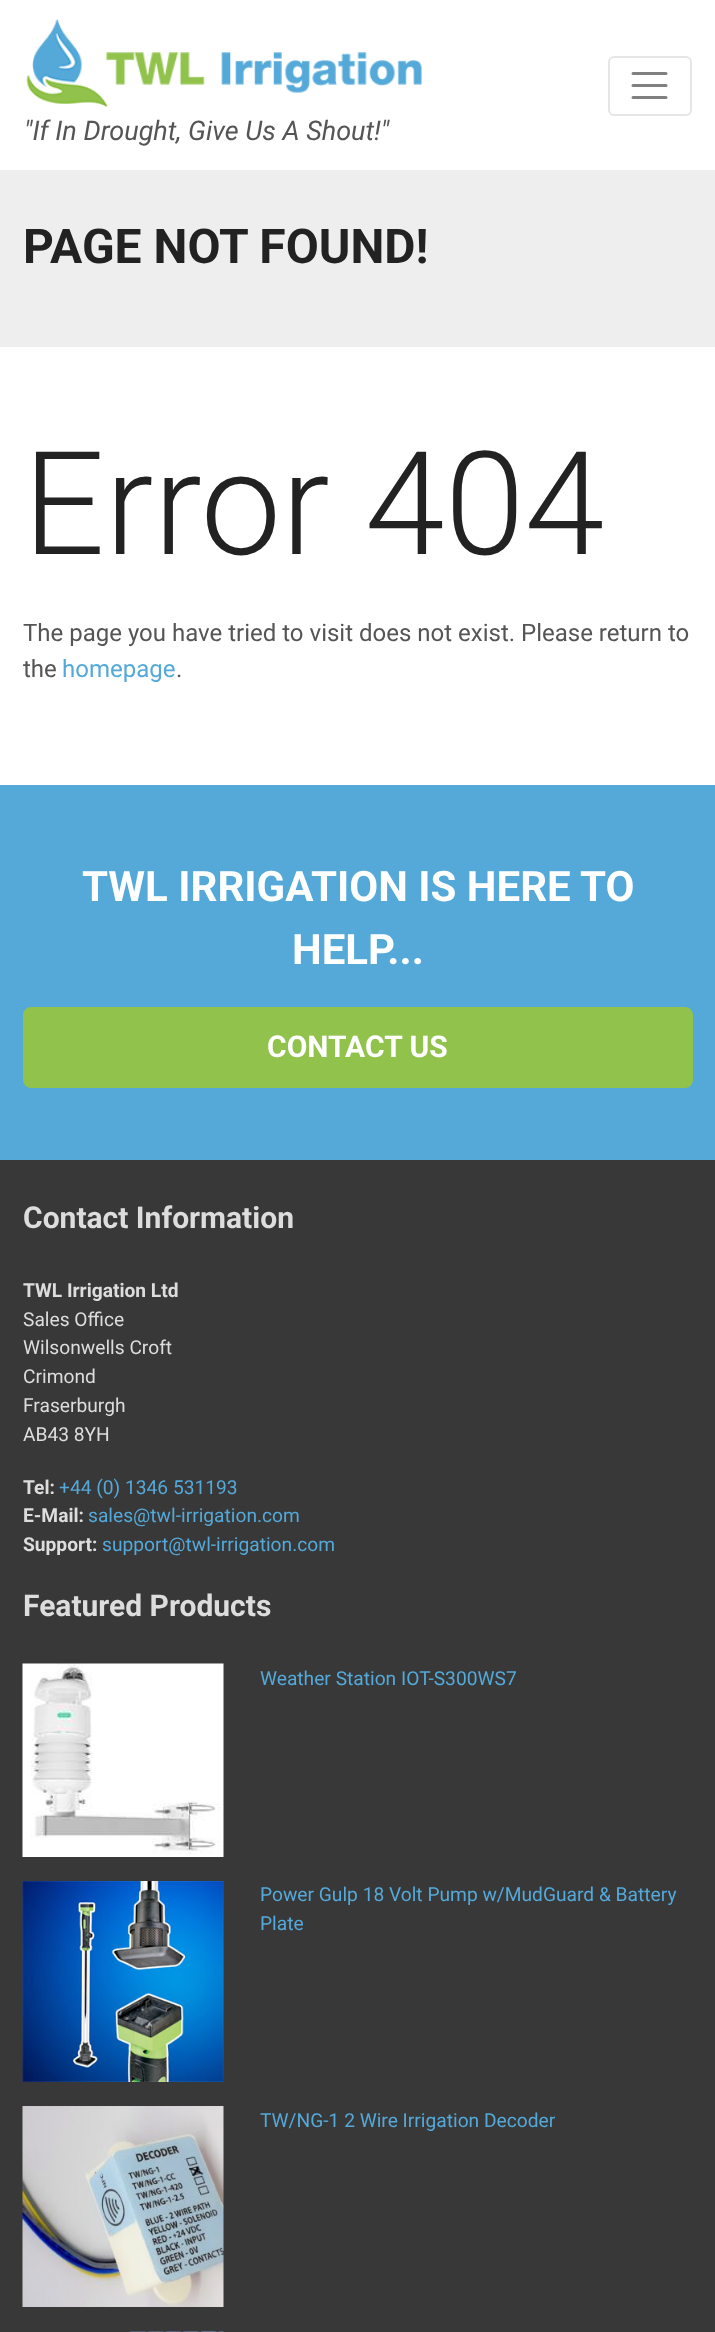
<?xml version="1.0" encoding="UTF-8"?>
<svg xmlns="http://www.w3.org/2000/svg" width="715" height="2332">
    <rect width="100%" height="100%" fill="#FFFFFF"/>
    <rect x="609" y="57" width="82" height="58" rx="5" fill="none" stroke="#E6E6E6" stroke-width="2"/>
    <path d="M 633 73.5 H 666 M 633 85.5 H 666 M 633 97.5 H 666" fill="none" stroke="#808080" stroke-width="3" stroke-linecap="round"/>
    <image x="26" y="19" width="396" height="89" href="img_01.png"/>
    <text x="24" y="140" font-family="Roboto" font-size="27" font-style="italic" fill="#555555">"If In Drought, Give Us A Shout!"</text>
    <rect x="0" y="170" width="715" height="177" fill="#EEEEEE"/>
    <text x="23" y="263" font-family="Roboto" font-size="48" font-weight="700" fill="#222222">PAGE NOT FOUND!</text>
    <text x="23" y="554" font-family="Roboto" font-size="144" font-weight="300" fill="#222222">Error 404</text>
    <text font-family="Roboto" font-size="24" fill="#555555">
        <tspan x="23" y="641">The page you have tried to visit does not exist. Please return to</tspan>
        <tspan x="23" y="677">the</tspan>
    </text>
    <text x="62" y="677" font-family="Roboto" font-size="24" fill="#54A9D9">homepage</text>
    <text x="176" y="677" font-family="Roboto" font-size="24" fill="#555555">.</text>
    <rect x="0" y="785" width="715" height="375" fill="#54A9D9"/>
    <text x="82" y="901" font-family="Roboto" font-size="42" font-weight="700" fill="#FFFFFF">TWL IRRIGATION IS HERE TO</text>
    <text x="292" y="964" font-family="Roboto" font-size="42" font-weight="700" fill="#FFFFFF">HELP...</text>
    <rect x="26" y="1010" width="664" height="75" rx="5" fill="#91C24C" stroke="#91C24C" stroke-width="6"/>
    <text x="267" y="1057" font-family="Roboto" font-size="30" font-weight="700" fill="#FFFFFF">CONTACT US</text>
    <rect x="0" y="1160" width="715" height="1172" fill="#383838"/>
    <text x="23" y="1228" font-family="Roboto" font-size="30" font-weight="700" fill="#DDDDDD">Contact Information</text>
    <text x="23" y="1297" font-family="Roboto" font-size="19.2" font-weight="700" fill="#DDDDDD">TWL Irrigation Ltd</text>
    <text font-family="Roboto" font-size="19.2" fill="#DDDDDD">
        <tspan x="23" y="1326">Sales Office</tspan>
        <tspan x="23" y="1354">Wilsonwells Croft</tspan>
        <tspan x="23" y="1383">Crimond</tspan>
        <tspan x="23" y="1412">Fraserburgh</tspan>
        <tspan x="23" y="1441">AB43 8YH</tspan>
    </text>
    <text x="23" y="1494" font-family="Roboto" font-size="19.2" font-weight="700" fill="#DDDDDD">Tel:</text>
    <text x="59" y="1494" font-family="Roboto" font-size="19.2" fill="#54A9D9">+44 (0) 1346 531193</text>
    <text x="23" y="1522" font-family="Roboto" font-size="19.2" font-weight="700" fill="#DDDDDD">E-Mail:</text>
    <text x="88" y="1522" font-family="Roboto" font-size="19.2" fill="#54A9D9">sales@twl-irrigation.com</text>
    <text x="23" y="1551" font-family="Roboto" font-size="19.2" font-weight="700" fill="#DDDDDD">Support:</text>
    <text x="102" y="1551" font-family="Roboto" font-size="19.2" fill="#54A9D9">support@twl-irrigation.com</text>
    <text x="23" y="1616" font-family="Roboto" font-size="30" font-weight="700" fill="#DDDDDD">Featured Products</text>
    <image x="22" y="1663" width="202" height="194" href="img_02.png"/>
    <text x="260" y="1685" font-family="Roboto" font-size="19.2" fill="#54A9D9">Weather Station IOT-S300WS7</text>
    <image x="22" y="1881" width="202" height="201" href="img_03.png"/>
    <text font-family="Roboto" font-size="19.2" fill="#54A9D9">
        <tspan x="260" y="1901">Power Gulp 18 Volt Pump w/MudGuard &amp; Battery</tspan>
        <tspan x="260" y="1930">Plate</tspan>
    </text>
    <image x="22" y="2106" width="202" height="201" href="img_04.png"/>
    <text x="260" y="2127" font-family="Roboto" font-size="19.2" fill="#54A9D9">TW/NG-1 2 Wire Irrigation Decoder</text>
    <image x="129" y="2331" width="95" height="1" href="img_05.png"/>
</svg>
